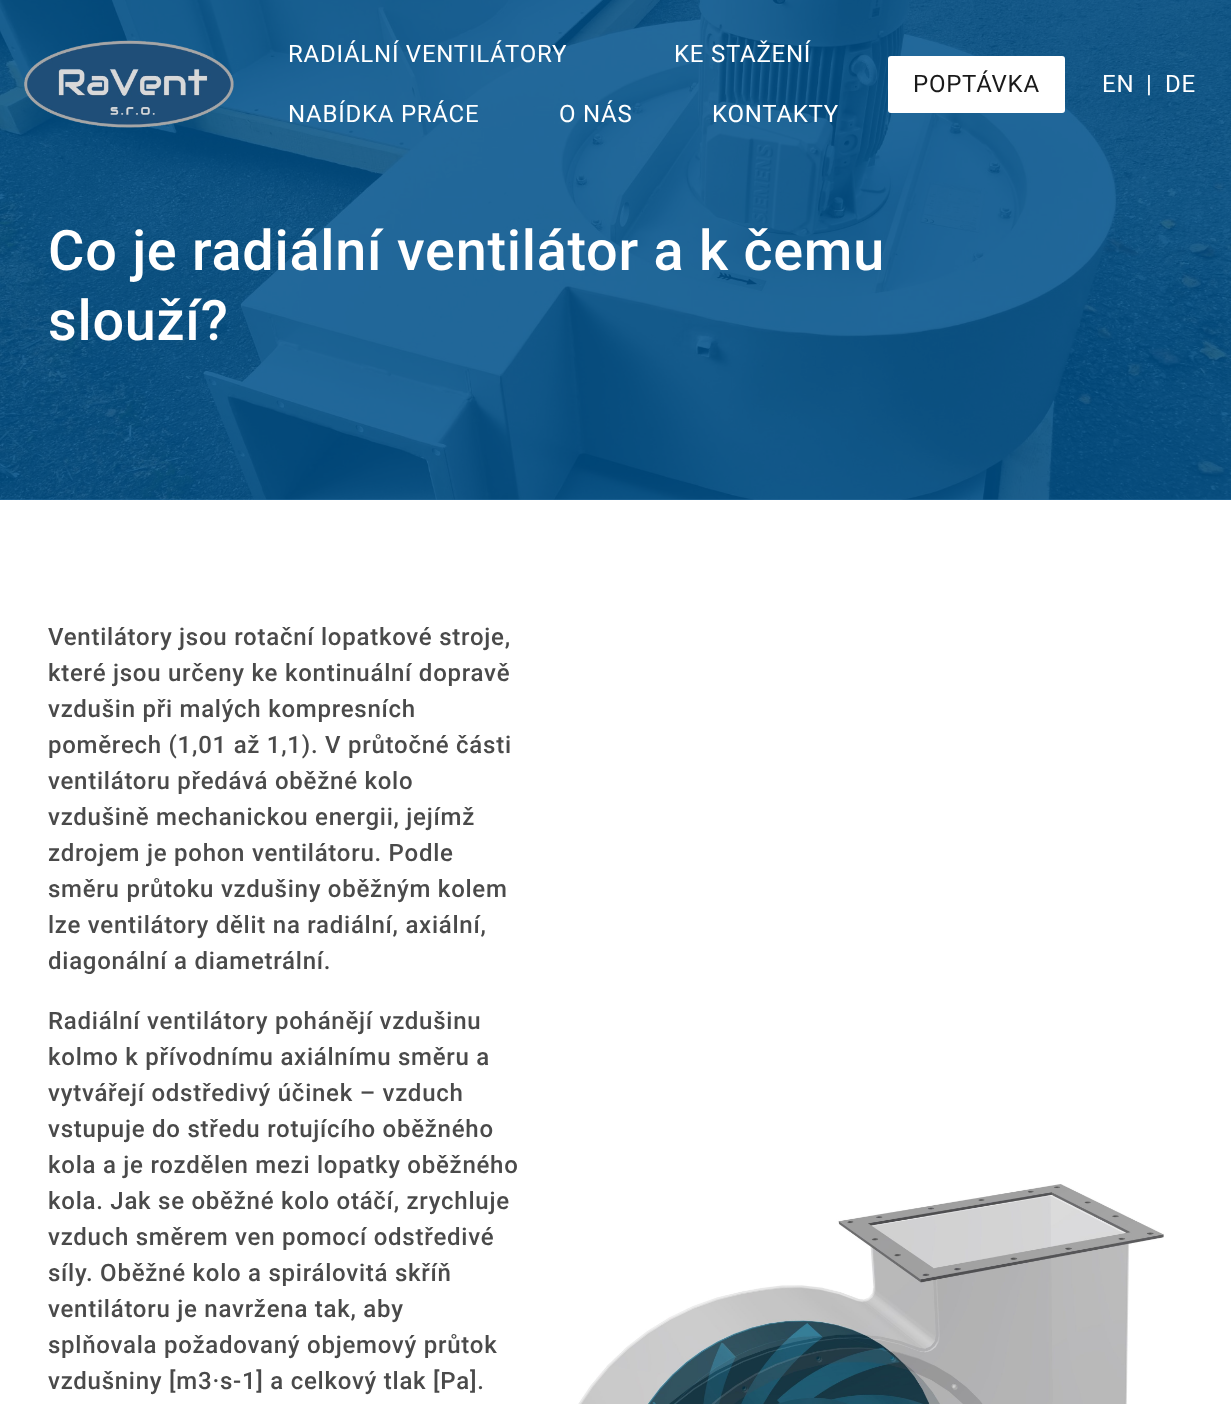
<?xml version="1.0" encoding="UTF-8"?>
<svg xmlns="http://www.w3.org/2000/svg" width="1231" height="1404">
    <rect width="100%" height="100%" fill="#FFFFFF"/>
    <rect x="0" y="499" width="1231" height="1" fill="#266B9C"/>
    <image x="0" y="0" width="1231" height="500" href="img_02.png"/>
    <image x="24" y="40" width="210" height="88" href="img_01.png"/>
    <text x="288" y="62" font-family="Roboto" font-size="24" letter-spacing="0.75" fill="#FFFFFF">RADIÁLNÍ VENTILÁTORY</text>
    <text x="674" y="62" font-family="Roboto" font-size="24" letter-spacing="0.75" fill="#FFFFFF">KE STAŽENÍ</text>
    <text x="288" y="122" font-family="Roboto" font-size="24" letter-spacing="0.75" fill="#FFFFFF">NABÍDKA PRÁCE</text>
    <text x="559" y="122" font-family="Roboto" font-size="24" letter-spacing="0.75" fill="#FFFFFF">O NÁS</text>
    <text x="712" y="122" font-family="Roboto" font-size="24" letter-spacing="0.75" fill="#FFFFFF">KONTAKTY</text>
    <rect x="889" y="57" width="175" height="55" rx="2" fill="#FFFFFF" stroke="#FFFFFF" stroke-width="2"/>
    <text x="913" y="92" font-family="Roboto" font-size="24" letter-spacing="0.75" fill="#1A1A1A">POPTÁVKA</text>
    <text x="1102" y="92" font-family="Roboto" font-size="24" letter-spacing="0.75" fill="#FFFFFF">EN</text>
    <text x="1146" y="92" font-family="Roboto" font-size="24" letter-spacing="0.75" fill="#FFFFFF">|</text>
    <text x="1165" y="92" font-family="Roboto" font-size="24" letter-spacing="0.75" fill="#FFFFFF">DE</text>
    <text font-family="Roboto" font-size="55.75" font-weight="500" letter-spacing="0.75" fill="#FFFFFF">
        <tspan x="48" y="270">Co je radiální ventilátor a k čemu</tspan>
        <tspan x="48" y="340">slouží?</tspan>
    </text>
    <text font-family="Roboto" font-size="24" font-weight="500" letter-spacing="0.75" fill="#4A4A4A">
        <tspan x="48" y="645">Ventilátory jsou rotační lopatkové stroje,</tspan>
        <tspan x="48" y="681">které jsou určeny ke kontinuální dopravě</tspan>
        <tspan x="48" y="717">vzdušin při malých kompresních</tspan>
        <tspan x="48" y="753">poměrech (1,01 až 1,1). V průtočné části</tspan>
        <tspan x="48" y="789">ventilátoru předává oběžné kolo</tspan>
        <tspan x="48" y="825">vzdušině mechanickou energii, jejímž</tspan>
        <tspan x="48" y="861">zdrojem je pohon ventilátoru. Podle</tspan>
        <tspan x="48" y="897">směru průtoku vzdušiny oběžným kolem</tspan>
        <tspan x="48" y="933">lze ventilátory dělit na radiální, axiální,</tspan>
        <tspan x="48" y="969">diagonální a diametrální.</tspan>
    </text>
    <text font-family="Roboto" font-size="24" font-weight="500" letter-spacing="0.75" fill="#4A4A4A">
        <tspan x="48" y="1029">Radiální ventilátory pohánějí vzdušinu</tspan>
        <tspan x="48" y="1065">kolmo k přívodnímu axiálnímu směru a</tspan>
        <tspan x="48" y="1101">vytvářejí odstředivý účinek – vzduch</tspan>
        <tspan x="48" y="1137">vstupuje do středu rotujícího oběžného</tspan>
        <tspan x="48" y="1173">kola a je rozdělen mezi lopatky oběžného</tspan>
        <tspan x="48" y="1209">kola. Jak se oběžné kolo otáčí, zrychluje</tspan>
        <tspan x="48" y="1245">vzduch směrem ven pomocí odstředivé</tspan>
        <tspan x="48" y="1281">síly. Oběžné kolo a spirálovitá skříň</tspan>
        <tspan x="48" y="1317">ventilátoru je navržena tak, aby</tspan>
        <tspan x="48" y="1353">splňovala požadovaný objemový průtok</tspan>
        <tspan x="48" y="1389">vzdušniny [m3·s-1] a celkový tlak [Pa].</tspan>
    </text>
    <image x="578" y="1184" width="586" height="220" href="img_03.png"/>
</svg>
